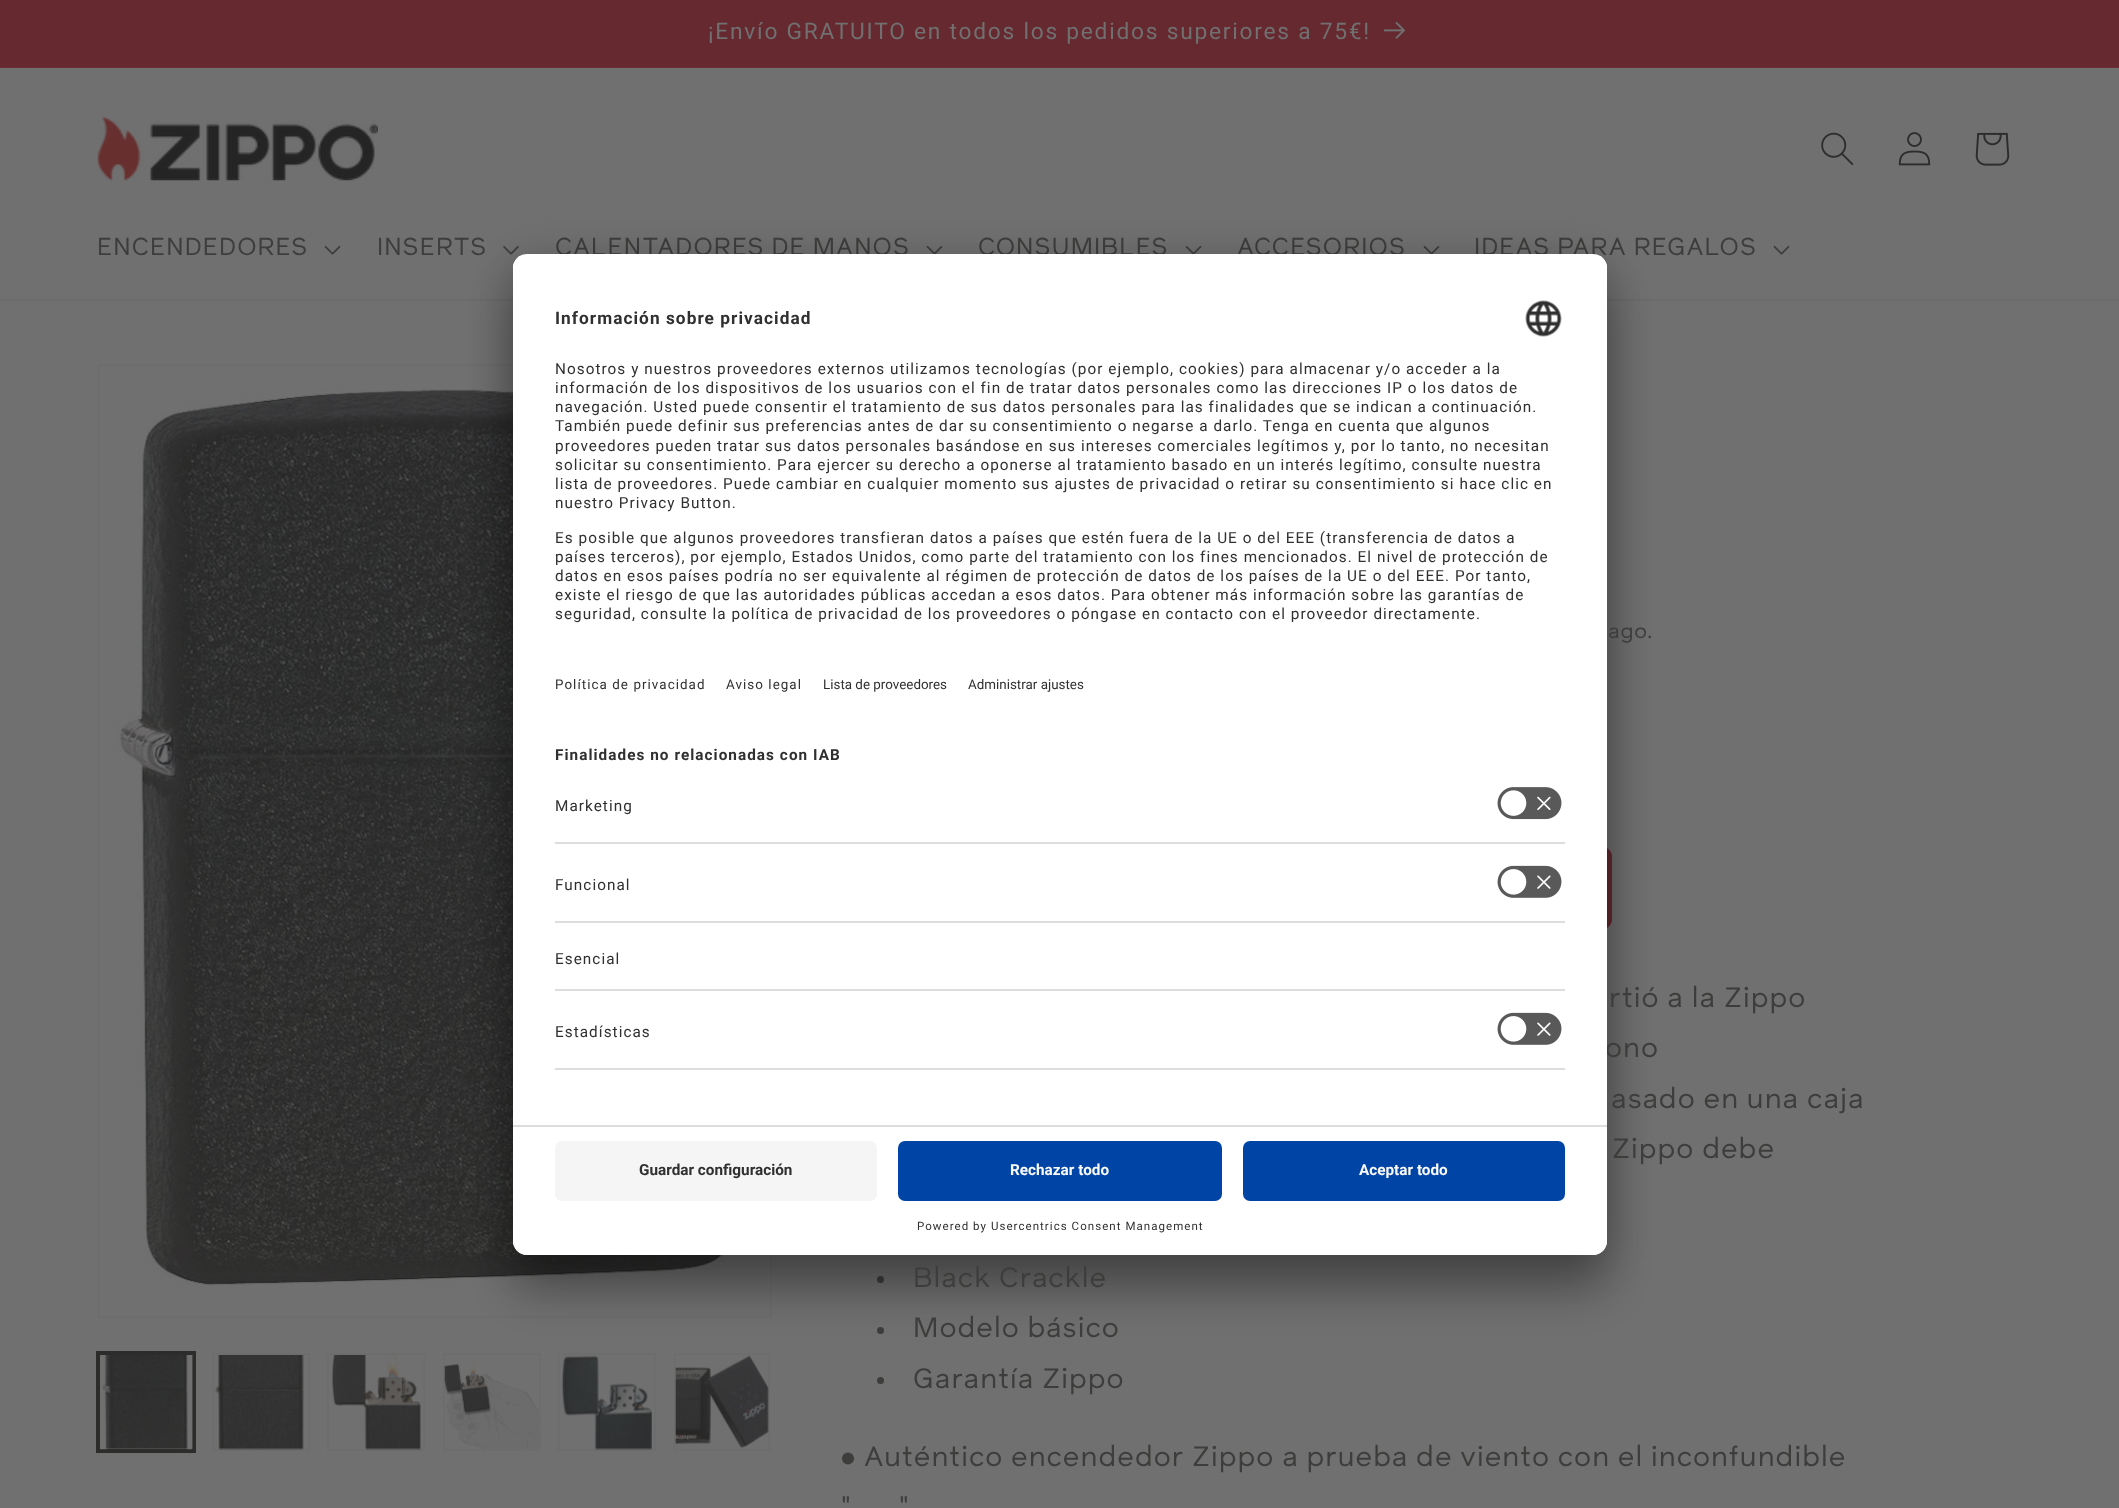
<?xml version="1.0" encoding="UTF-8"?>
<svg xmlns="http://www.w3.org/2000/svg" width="2119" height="1508">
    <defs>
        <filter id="blur1" x="-50%" y="-200%" width="200%" height="500%"><feGaussianBlur stdDeviation="24.5"/></filter>
        <filter id="blur2" x="-50%" y="-200%" width="200%" height="500%"><feGaussianBlur stdDeviation="23"/></filter>
        <clipPath id="clip1"><rect x="513" y="254" width="1094" height="1001" rx="14"/></clipPath>
        <clipPath id="clip2"><path d="M 527 254 H 1593 C 1600.5 254 1607 260.5 1607 268 V 1125 H 513 V 268 C 513 260.5 519.5 254 527 254 Z"/></clipPath>
    </defs>
    <rect width="100%" height="100%" fill="#707070"/>
    <rect x="0" y="0" width="2119" height="67" fill="#662930"/>
    <rect x="0" y="67" width="2119" height="1" fill="#672F35"/>
    <text x="708" y="39" font-family="Roboto" font-size="22.75" letter-spacing="1.75" fill="#707070">¡Envío GRATUITO en todos los pedidos superiores a 75€!</text>
    <image x="1384" y="21" width="21" height="18" href="img_01.png"/>
    <rect x="0" y="299" width="2119" height="2" fill="#6B6B6B"/>
    <image x="97" y="116" width="281" height="65" href="img_02.png"/>
    <image x="1821" y="132" width="33" height="34" href="img_03.png"/>
    <image x="1898" y="132" width="33" height="34" href="img_04.png"/>
    <image x="1975" y="132" width="35" height="34" href="img_05.png"/>
    <text x="97" y="255" font-family="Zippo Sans" font-size="24.5" letter-spacing="1.05" fill="#3D3D3C">ENCENDEDORES</text>
    <image x="324" y="245" width="17" height="10" href="img_06.png"/>
    <text x="377" y="255" font-family="Zippo Sans" font-size="24.5" letter-spacing="1.05" fill="#3D3D3C">INSERTS</text>
    <image x="503" y="246" width="16" height="9" href="img_07.png"/>
    <text x="555" y="255" font-family="Zippo Sans" font-size="24.5" letter-spacing="1.05" fill="#3D3D3C">CALENTADORES DE MANOS</text>
    <image x="926" y="245" width="17" height="9" href="img_08.png"/>
    <text x="978" y="255" font-family="Zippo Sans" font-size="24.5" letter-spacing="1.05" fill="#3D3D3C">CONSUMIBLES</text>
    <image x="1185" y="245" width="17" height="9" href="img_08.png"/>
    <text x="1237" y="255" font-family="Zippo Sans" font-size="24.5" letter-spacing="1.05" fill="#3D3D3C">ACCESORIOS</text>
    <image x="1423" y="245" width="17" height="9" href="img_08.png"/>
    <text x="1474" y="255" font-family="Zippo Sans" font-size="24.5" letter-spacing="1.05" fill="#3D3D3C">IDEAS PARA REGALOS</text>
    <image x="1773" y="245" width="17" height="10" href="img_06.png"/>
    <rect x="99" y="365" width="672" height="952" fill="none" stroke="#6D6D6D" stroke-width="2"/>
    <image x="115" y="388" width="623" height="898" href="img_12.png"/>
    <rect x="444" y="1354" width="96" height="96" fill="none" stroke="#6D6D6D" stroke-width="2"/>
    <image x="444" y="1360" width="95" height="90" href="img_16.png"/>
    <rect x="559" y="1354" width="96" height="96" fill="none" stroke="#6D6D6D" stroke-width="2"/>
    <image x="561" y="1355" width="94" height="95" href="img_17.png"/>
    <rect x="675" y="1354" width="94" height="96" fill="none" stroke="#6D6D6D" stroke-width="2"/>
    <image x="675" y="1355" width="94" height="93" href="img_18.png"/>
    <rect x="843" y="848" width="768" height="80" rx="8" fill="#662930" stroke="#662930" stroke-width="2"/>
    <circle cx="880.5" cy="1279.5" r="3.5" fill="#3D3D3C"/>
    <circle cx="880.5" cy="1330.5" r="3.5" fill="#3D3D3C"/>
    <rect x="513" y="289" width="1094" height="1001" rx="14" fill="#000000" fill-opacity="0.3" filter="url(#blur1)"/>
    <rect x="513" y="263" width="1094" height="1001" rx="14" fill="#000000" fill-opacity="0.22" filter="url(#blur2)"/>
    <text x="1605" y="1057" font-family="Zippo Sans" font-size="28" letter-spacing="1.05" fill="#3D3D3C">ono</text>
    <rect x="513" y="254" width="1094" height="1001" rx="14" fill="#FFFFFF"/>
    <g clip-path="url(#clip1)">
        <g clip-path="url(#clip2)">
            <rect x="513" y="256" width="1094" height="869" fill="#FFFFFF"/>
            <rect x="513" y="256" width="1094" height="470" fill="#FFFFFF"/>
        </g>
    </g>
    <text x="555" y="324" font-family="Roboto" font-size="17.25" font-weight="700" letter-spacing="1.05" fill="#303030">Información sobre privacidad</text>
    <image x="1525" y="300" width="37" height="37" href="img_09.png"/>
    <text font-family="Roboto" font-size="15.3" letter-spacing="1.05" fill="#303030">
        <tspan x="555" y="374">Nosotros y nuestros proveedores externos utilizamos tecnologías (por ejemplo, cookies) para almacenar y/o acceder a la</tspan>
        <tspan x="555" y="393">información de los dispositivos de los usuarios con el fin de tratar datos personales como las direcciones IP o los datos de</tspan>
        <tspan x="555" y="412">navegación. Usted puede consentir el tratamiento de sus datos personales para las finalidades que se indican a continuación.</tspan>
        <tspan x="555" y="431">También puede definir sus preferencias antes de dar su consentimiento o negarse a darlo. Tenga en cuenta que algunos</tspan>
        <tspan x="555" y="451">proveedores pueden tratar sus datos personales basándose en sus intereses comerciales legítimos y, por lo tanto, no necesitan</tspan>
        <tspan x="555" y="470">solicitar su consentimiento. Para ejercer su derecho a oponerse al tratamiento basado en un interés legítimo, consulte nuestra</tspan>
        <tspan x="555" y="489">lista de proveedores. Puede cambiar en cualquier momento sus ajustes de privacidad o retirar su consentimiento si hace clic en</tspan>
        <tspan x="555" y="508">nuestro Privacy Button.</tspan>
    </text>
    <text font-family="Roboto" font-size="15.3" letter-spacing="1.05" fill="#303030">
        <tspan x="555" y="543">Es posible que algunos proveedores transfieran datos a países que estén fuera de la UE o del EEE (transferencia de datos a</tspan>
        <tspan x="555" y="562">países terceros), por ejemplo, Estados Unidos, como parte del tratamiento con los fines mencionados. El nivel de protección de</tspan>
        <tspan x="555" y="581">datos en esos países podría no ser equivalente al régimen de protección de datos de los países de la UE o del EEE. Por tanto,</tspan>
        <tspan x="555" y="600">existe el riesgo de que las autoridades públicas accedan a esos datos. Para obtener más información sobre las garantías de</tspan>
        <tspan x="555" y="619">seguridad, consulte la política de privacidad de los proveedores o póngase en contacto con el proveedor directamente.</tspan>
    </text>
    <text x="555" y="689" font-family="Roboto" font-size="13.4" letter-spacing="1.05" fill="#303030">Política de privacidad</text>
    <text x="726" y="689" font-family="Roboto" font-size="13.4" letter-spacing="1.05" fill="#303030">Aviso legal</text>
    <text x="823" y="689" font-family="Roboto" font-size="13.4" fill="#303030">Lista de proveedores</text>
    <text x="968" y="689" font-family="Roboto" font-size="13.4" fill="#303030">Administrar ajustes</text>
    <text x="555" y="760" font-family="Roboto" font-size="15.3" font-weight="700" letter-spacing="1.05" fill="#303030">Finalidades no relacionadas con IAB</text>
    <rect x="555" y="842" width="1010" height="2" fill="#DDDDDD"/>
    <text x="555" y="811" font-family="Roboto" font-size="15.3" letter-spacing="1.05" fill="#303030">Marketing</text>
    <image x="1497" y="787" width="65" height="33" href="img_10.png"/>
    <rect x="555" y="921" width="1010" height="2" fill="#DDDDDD"/>
    <text x="555" y="890" font-family="Roboto" font-size="15.3" letter-spacing="1.05" fill="#303030">Funcional</text>
    <image x="1497" y="865" width="65" height="33" href="img_11.png"/>
    <rect x="555" y="989" width="1010" height="2" fill="#DDDDDD"/>
    <text x="555" y="964" font-family="Roboto" font-size="15.3" letter-spacing="1.05" fill="#303030">Esencial</text>
    <rect x="555" y="1068" width="1010" height="2" fill="#DDDDDD"/>
    <text x="555" y="1037" font-family="Roboto" font-size="15.3" letter-spacing="1.05" fill="#303030">Estadísticas</text>
    <image x="1497" y="1012" width="65" height="33" href="img_11.png"/>
    <path d="M 513 1125 H 1607 V 1241 C 1607 1248.5 1600.5 1255 1593 1255 H 527 C 519.5 1255 513 1248.5 513 1241 Z" fill="#FFFFFF"/>
    <rect x="513" y="1125" width="1094" height="2" fill="#DDDDDD"/>
    <rect x="555" y="1141" width="322" height="60" rx="7" fill="#F5F5F5"/>
    <text x="639" y="1175" font-family="Roboto" font-size="15.3" font-weight="700" fill="#303030">Guardar configuración</text>
    <rect x="898" y="1141" width="324" height="60" rx="7" fill="#0045A5"/>
    <text x="1010" y="1175" font-family="Roboto" font-size="15.3" font-weight="700" fill="#FAFAFA">Rechazar todo</text>
    <rect x="1243" y="1141" width="322" height="60" rx="7" fill="#0045A5"/>
    <text x="1359" y="1175" font-family="Roboto" font-size="15.3" font-weight="700" fill="#FAFAFA">Aceptar todo</text>
    <text x="917" y="1230" font-family="Roboto" font-size="11.5" letter-spacing="1.05" fill="#303030">Powered by Usercentrics Consent Management</text>
    <rect x="97" y="1352" width="98" height="100" fill="none" stroke="#2C2C2B" stroke-width="2"/>
    <rect x="99" y="1354" width="94" height="96" fill="none" stroke="#2C2C2B" stroke-width="2"/>
    <image x="100" y="1355" width="93" height="95" href="img_13.png"/>
    <rect x="213" y="1354" width="96" height="96" fill="none" stroke="#6D6D6D" stroke-width="2"/>
    <image x="214" y="1355" width="90" height="95" href="img_14.png"/>
    <rect x="328" y="1354" width="96" height="96" fill="none" stroke="#6D6D6D" stroke-width="2"/>
    <image x="331" y="1355" width="93" height="95" href="img_15.png"/>
    <text x="1608" y="638" font-family="Zippo Sans" font-size="21" letter-spacing="1" fill="#3D3D3C">ago.</text>
    <text x="1609" y="1007" font-family="Zippo Sans" font-size="28" letter-spacing="1.05" fill="#3D3D3C">rtió a la Zippo</text>
    <text x="1611" y="1108" font-family="Zippo Sans" font-size="28" letter-spacing="1.05" fill="#3D3D3C">asado en una caja</text>
    <text x="1612" y="1158" font-family="Zippo Sans" font-size="28" letter-spacing="1.05" fill="#3D3D3C">Zippo debe</text>
    <text font-family="Zippo Sans" font-size="28" letter-spacing="1.05" fill="#3D3D3C">
        <tspan x="913" y="1287">Black Crackle</tspan>
        <tspan x="913" y="1337">Modelo básico</tspan>
    </text>
    <circle cx="880.5" cy="1380.5" r="3.5" fill="#3D3D3C"/>
    <text x="913" y="1388" font-family="Zippo Sans" font-size="28" letter-spacing="1.05" fill="#3D3D3C">Garantía Zippo</text>
    <text x="841" y="1466" font-family="FreeSans" font-size="28" letter-spacing="1.05" fill="#3D3D3C">⦁</text>
    <text x="864" y="1466" font-family="Zippo Sans" font-size="28" letter-spacing="1.05" fill="#3D3D3C">Auténtico encendedor Zippo a prueba de viento con el inconfundible</text>
    <text x="841" y="1516" font-family="Zippo Sans" font-size="28" letter-spacing="1.05" fill="#3D3D3C">"</text>
    <text x="899" y="1516" font-family="Zippo Sans" font-size="28" letter-spacing="1.05" fill="#3D3D3C">"</text>
</svg>
